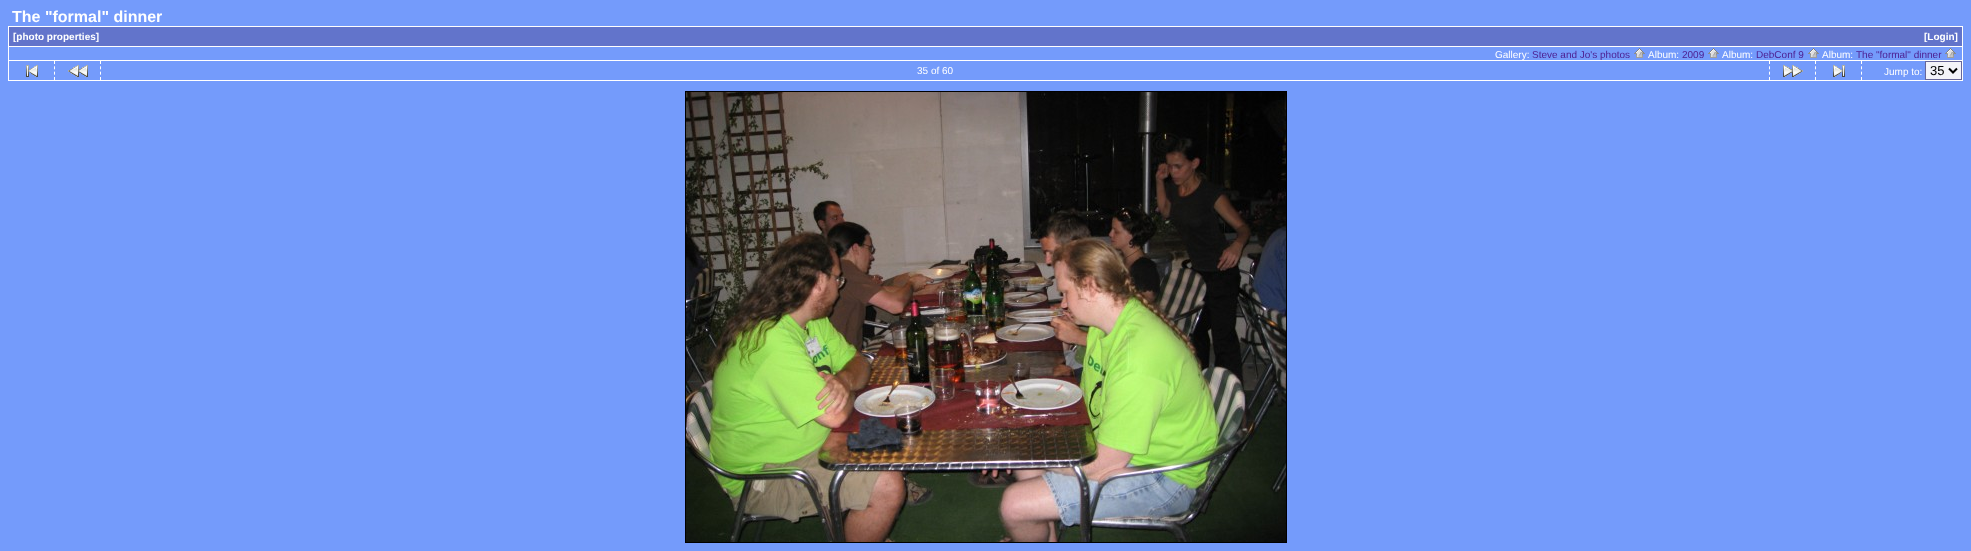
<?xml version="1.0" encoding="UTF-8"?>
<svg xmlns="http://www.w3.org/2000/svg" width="1971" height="551">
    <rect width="100%" height="100%" fill="#749BFB"/>
    <text x="12" y="22" font-family="Liberation Sans" font-size="16" font-weight="700" fill="#FFFFFF">The "formal" dinner</text>
    <rect x="8.5" y="26.5" width="1954" height="20" fill="none" stroke="#FFFFFF"/>
    <rect x="9" y="27" width="1953" height="19" fill="#6274CB"/>
    <text x="13" y="40" font-family="Liberation Sans" font-size="10" font-weight="700" fill="#FFFFFF">[photo properties]</text>
    <text x="1924" y="40" font-family="Liberation Sans" font-size="10" font-weight="700" fill="#FFFFFF">[Login]</text>
    <rect x="1962" y="47" width="1" height="34" fill="#FFFFFF"/>
    <rect x="8" y="60" width="1955" height="1" fill="#FFFFFF"/>
    <rect x="8" y="47" width="1" height="14" fill="#FFFFFF"/>
    <text x="1495" y="58" font-family="Liberation Sans" font-size="10" fill="#FFFFFF">Gallery:</text>
    <text x="1532" y="58" font-family="Liberation Sans" font-size="10" fill="#4E2192">Steve and Jo's photos</text>
    <image x="1634" y="48" width="11" height="10" href="img_01.png"/>
    <text x="1648" y="58" font-family="Liberation Sans" font-size="10" fill="#FFFFFF">Album:</text>
    <text x="1682" y="58" font-family="Liberation Sans" font-size="10" fill="#4E2192">2009</text>
    <image x="1708" y="48" width="11" height="10" href="img_01.png"/>
    <text x="1722" y="58" font-family="Liberation Sans" font-size="10" fill="#FFFFFF">Album:</text>
    <text x="1756" y="58" font-family="Liberation Sans" font-size="10" fill="#4E2192">DebConf 9</text>
    <image x="1808" y="48" width="11" height="10" href="img_01.png"/>
    <text x="1822" y="58" font-family="Liberation Sans" font-size="10" fill="#FFFFFF">Album:</text>
    <text x="1856" y="58" font-family="Liberation Sans" font-size="10" fill="#4E2192">The "formal" dinner</text>
    <image x="1945" y="48" width="11" height="10" href="img_01.png"/>
    <rect x="8" y="80" width="1955" height="1" fill="#FFFFFF"/>
    <rect x="8" y="61" width="1" height="20" fill="#FFFFFF"/>
    <path d="M 54.5 61 V 80 M 100.5 61 V 80" fill="none" stroke="#FFFFFF" stroke-dasharray="3 2.33"/>
    <image x="26" y="65" width="12" height="12" href="img_02.png"/>
    <path d="M 1769.5 61 V 80 M 1815.5 61 V 80" fill="none" stroke="#FFFFFF" stroke-dasharray="3 2.33"/>
    <image x="1783" y="65" width="20" height="12" href="img_03.png"/>
    <image x="68" y="65" width="20" height="12" href="img_04.png"/>
    <text x="917" y="74" font-family="Liberation Sans" font-size="10" fill="#FFFFFF">35 of 60</text>
    <image x="1833" y="65" width="12" height="12" href="img_05.png"/>
    <path d="M 1861.5 61 V 80" fill="none" stroke="#FFFFFF" stroke-dasharray="3 2.33"/>
    <text x="1884" y="75" font-family="Liberation Sans" font-size="10" fill="#FFFFFF">Jump to:</text>
    <rect x="1925.5" y="61.5" width="36" height="18" fill="#F3F3F9" stroke="#666699"/>
    <path d="M 1949 68.5 L 1953 72.5 L 1957 68.5" fill="none" stroke="#000000" stroke-width="2"/>
    <text x="1930" y="75" font-family="Liberation Sans" font-size="13" fill="#000000">35</text>
    <rect x="685.5" y="91.5" width="601" height="451" fill="none" stroke="#000000"/>
    <image x="686" y="92" width="600" height="450" href="img_06.png"/>
</svg>
